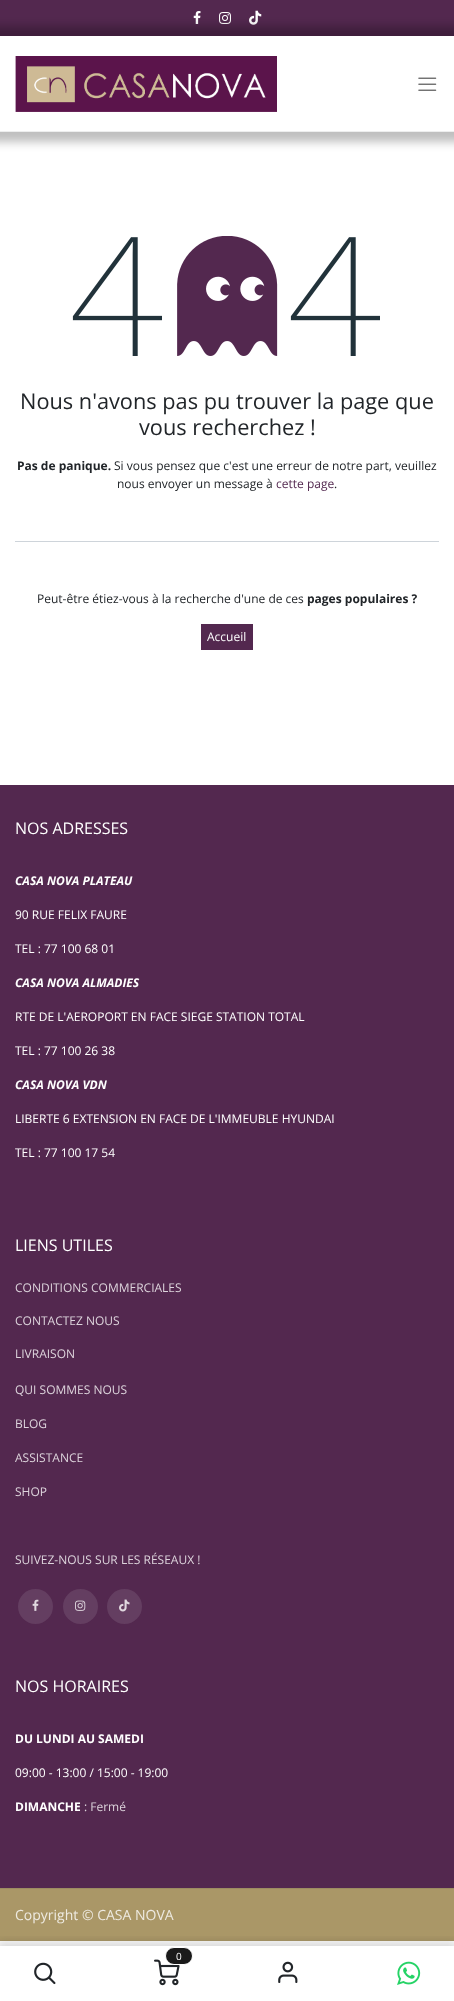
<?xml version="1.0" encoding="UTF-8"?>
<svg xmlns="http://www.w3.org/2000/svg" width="454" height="2001">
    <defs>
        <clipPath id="clip1"><path d="M 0 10 H 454 V 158 H 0 Z M 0 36 H 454 V 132 H 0 Z" clip-rule="evenodd"/></clipPath>
        <filter id="blur1" x="-50%" y="-200%" width="200%" height="500%"><feGaussianBlur stdDeviation="5"/></filter>
        <clipPath id="clip2"><rect x="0" y="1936" width="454" height="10"/></clipPath>
    </defs>
    <rect width="100%" height="100%" fill="#FFFFFF"/>
    <rect x="0" y="0" width="454" height="36" fill="#53284F"/>
    <image x="193" y="11" width="8" height="13" href="img_01.png"/>
    <image x="219" y="12" width="12" height="12" href="img_02.png"/>
    <image x="249" y="10" width="13" height="15" href="img_03.png"/>
    <g clip-path="url(#clip1)">
        <rect x="-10" y="26" width="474" height="116" fill="#000000" fill-opacity="0.25" filter="url(#blur1)"/>
    </g>
    <image x="15" y="56" width="262" height="56" href="img_04.png"/>
    <image x="418" y="77" width="19" height="14" href="img_05.png"/>
    <rect x="0" y="131" width="454" height="1" fill="#EDEEEE"/>
    <image x="72" y="236" width="308" height="120" href="img_06.png"/>
    <text x="20" y="409" font-family="Open Sans" font-size="21.75" fill="#212529">Nous n'avons pas pu trouver la page que</text>
    <text x="139" y="435" font-family="Open Sans" font-size="21.75" fill="#212529">vous recherchez !</text>
    <text x="17" y="470" font-family="Open Sans" font-size="12" font-weight="700" fill="#212529">Pas de panique.</text>
    <text x="114" y="470" font-family="Open Sans" font-size="12" fill="#212529">Si vous pensez que c'est une erreur de notre part, veuillez</text>
    <text x="117" y="488" font-family="Open Sans" font-size="12" fill="#212529">nous envoyer un message à</text>
    <text x="276" y="488" font-family="Open Sans" font-size="12" fill="#53284F">cette page</text>
    <text x="334" y="488" font-family="Open Sans" font-size="12" fill="#212529">.</text>
    <rect x="15" y="541" width="424" height="1" fill="#CED4DA"/>
    <text x="37" y="603" font-family="Open Sans" font-size="12" fill="#212529">Peut-être étiez-vous à la recherche d'une de ces</text>
    <text x="307" y="603" font-family="Open Sans" font-size="12" font-weight="700" fill="#212529">pages populaires ?</text>
    <rect x="201" y="624" width="52" height="26" fill="#53284F"/>
    <text x="207" y="641" font-family="Open Sans" font-size="12" fill="#FFFFFF">Accueil</text>
    <rect x="0" y="785" width="454" height="1103" fill="#53284F"/>
    <text x="15" y="834" font-family="Open Sans" font-size="16" fill="#FFFFFF">NOS ADRESSES</text>
    <text x="15" y="885" font-family="Open Sans" font-size="12" font-weight="700" font-style="italic" fill="#FFFFFF">CASA NOVA PLATEAU</text>
    <text x="15" y="919" font-family="Open Sans" font-size="12" fill="#FFFFFF">90 RUE FELIX FAURE</text>
    <text x="15" y="953" font-family="Open Sans" font-size="12" fill="#FFFFFF">TEL : 77 100 68 01</text>
    <text x="15" y="987" font-family="Open Sans" font-size="12" font-weight="700" font-style="italic" fill="#FFFFFF">CASA NOVA ALMADIES</text>
    <text x="15" y="1021" font-family="Open Sans" font-size="12" fill="#FFFFFF">RTE DE L'AEROPORT EN FACE SIEGE STATION TOTAL</text>
    <text x="15" y="1055" font-family="Open Sans" font-size="12" fill="#FFFFFF">TEL : 77 100 26 38</text>
    <text x="15" y="1089" font-family="Open Sans" font-size="12" font-weight="700" font-style="italic" fill="#FFFFFF">CASA NOVA VDN</text>
    <text x="15" y="1123" font-family="Open Sans" font-size="12" fill="#FFFFFF">LIBERTE 6 EXTENSION EN FACE DE L'IMMEUBLE HYUNDAI</text>
    <text x="15" y="1157" font-family="Open Sans" font-size="12" fill="#FFFFFF">TEL : 77 100 17 54</text>
    <text x="15" y="1251" font-family="Open Sans" font-size="16" fill="#FFFFFF">LIENS UTILES</text>
    <text x="15" y="1292" font-family="Open Sans" font-size="12" fill="#DDD4DC">CONDITIONS COMMERCIALES</text>
    <text x="15" y="1325" font-family="Open Sans" font-size="12" fill="#DDD4DC">CONTACTEZ NOUS</text>
    <text x="15" y="1358" font-family="Open Sans" font-size="12" fill="#DDD4DC">LIVRAISON</text>
    <text x="15" y="1394" font-family="Open Sans" font-size="12" fill="#DDD4DC">QUI SOMMES NOUS</text>
    <text x="15" y="1428" font-family="Open Sans" font-size="12" fill="#DDD4DC">BLOG</text>
    <text x="15" y="1462" font-family="Open Sans" font-size="12" fill="#DDD4DC">ASSISTANCE</text>
    <text x="15" y="1496" font-family="Open Sans" font-size="12" fill="#DDD4DC">SHOP</text>
    <text x="15" y="1564" font-family="Open Sans" font-size="12" fill="#DDD4DC">SUIVEZ-NOUS SUR LES RÉSEAUX !</text>
    <circle cx="35.5" cy="1606.5" r="17.5" fill="#643E61"/>
    <image x="32" y="1599" width="7" height="12" href="img_07.png"/>
    <circle cx="80.5" cy="1606.5" r="17.5" fill="#643E61"/>
    <image x="75" y="1600" width="11" height="11" href="img_08.png"/>
    <circle cx="124.5" cy="1606.5" r="17.5" fill="#643E61"/>
    <image x="119" y="1599" width="11" height="13" href="img_09.png"/>
    <text x="15" y="1692" font-family="Open Sans" font-size="16" fill="#FFFFFF">NOS HORAIRES</text>
    <text x="15" y="1743" font-family="Open Sans" font-size="12" font-weight="700" fill="#FFFFFF">DU LUNDI AU SAMEDI</text>
    <text x="15" y="1777" font-family="Open Sans" font-size="12" fill="#FFFFFF">09:00 - 13:00 / 15:00 - 19:00</text>
    <text x="15" y="1811" font-family="Open Sans" font-size="12" font-weight="700" fill="#FFFFFF">DIMANCHE</text>
    <text x="84" y="1811" font-family="Open Sans" font-size="12" fill="#DDD4DC">: Fermé</text>
    <rect x="0" y="1889" width="454" height="52" fill="#AA9767"/>
    <rect x="0" y="1888" width="454" height="1" fill="#9C8C61"/>
    <text x="15" y="1920" font-family="Open Sans" font-size="14" fill="#EEEAE1">Copyright © CASA NOVA</text>
    <g clip-path="url(#clip2)">
        <rect x="-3" y="1941" width="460" height="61" fill="#1A1A1A" fill-opacity="0.14" filter="url(#blur1)"/>
    </g>
    <image x="154" y="1959" width="26" height="27" href="img_10.png"/>
    <rect x="165.5" y="1947.5" width="27" height="17" rx="8.5" fill="#1A1A1A" stroke="#FFFFFF"/>
    <text x="176" y="1960" font-family="Open Sans" font-size="10" fill="#FFFFFF">0</text>
    <image x="34" y="1962" width="22" height="23" href="img_11.png"/>
    <image x="278" y="1961" width="20" height="22" href="img_12.png"/>
    <image x="397" y="1961" width="24" height="24" href="img_13.png"/>
</svg>
